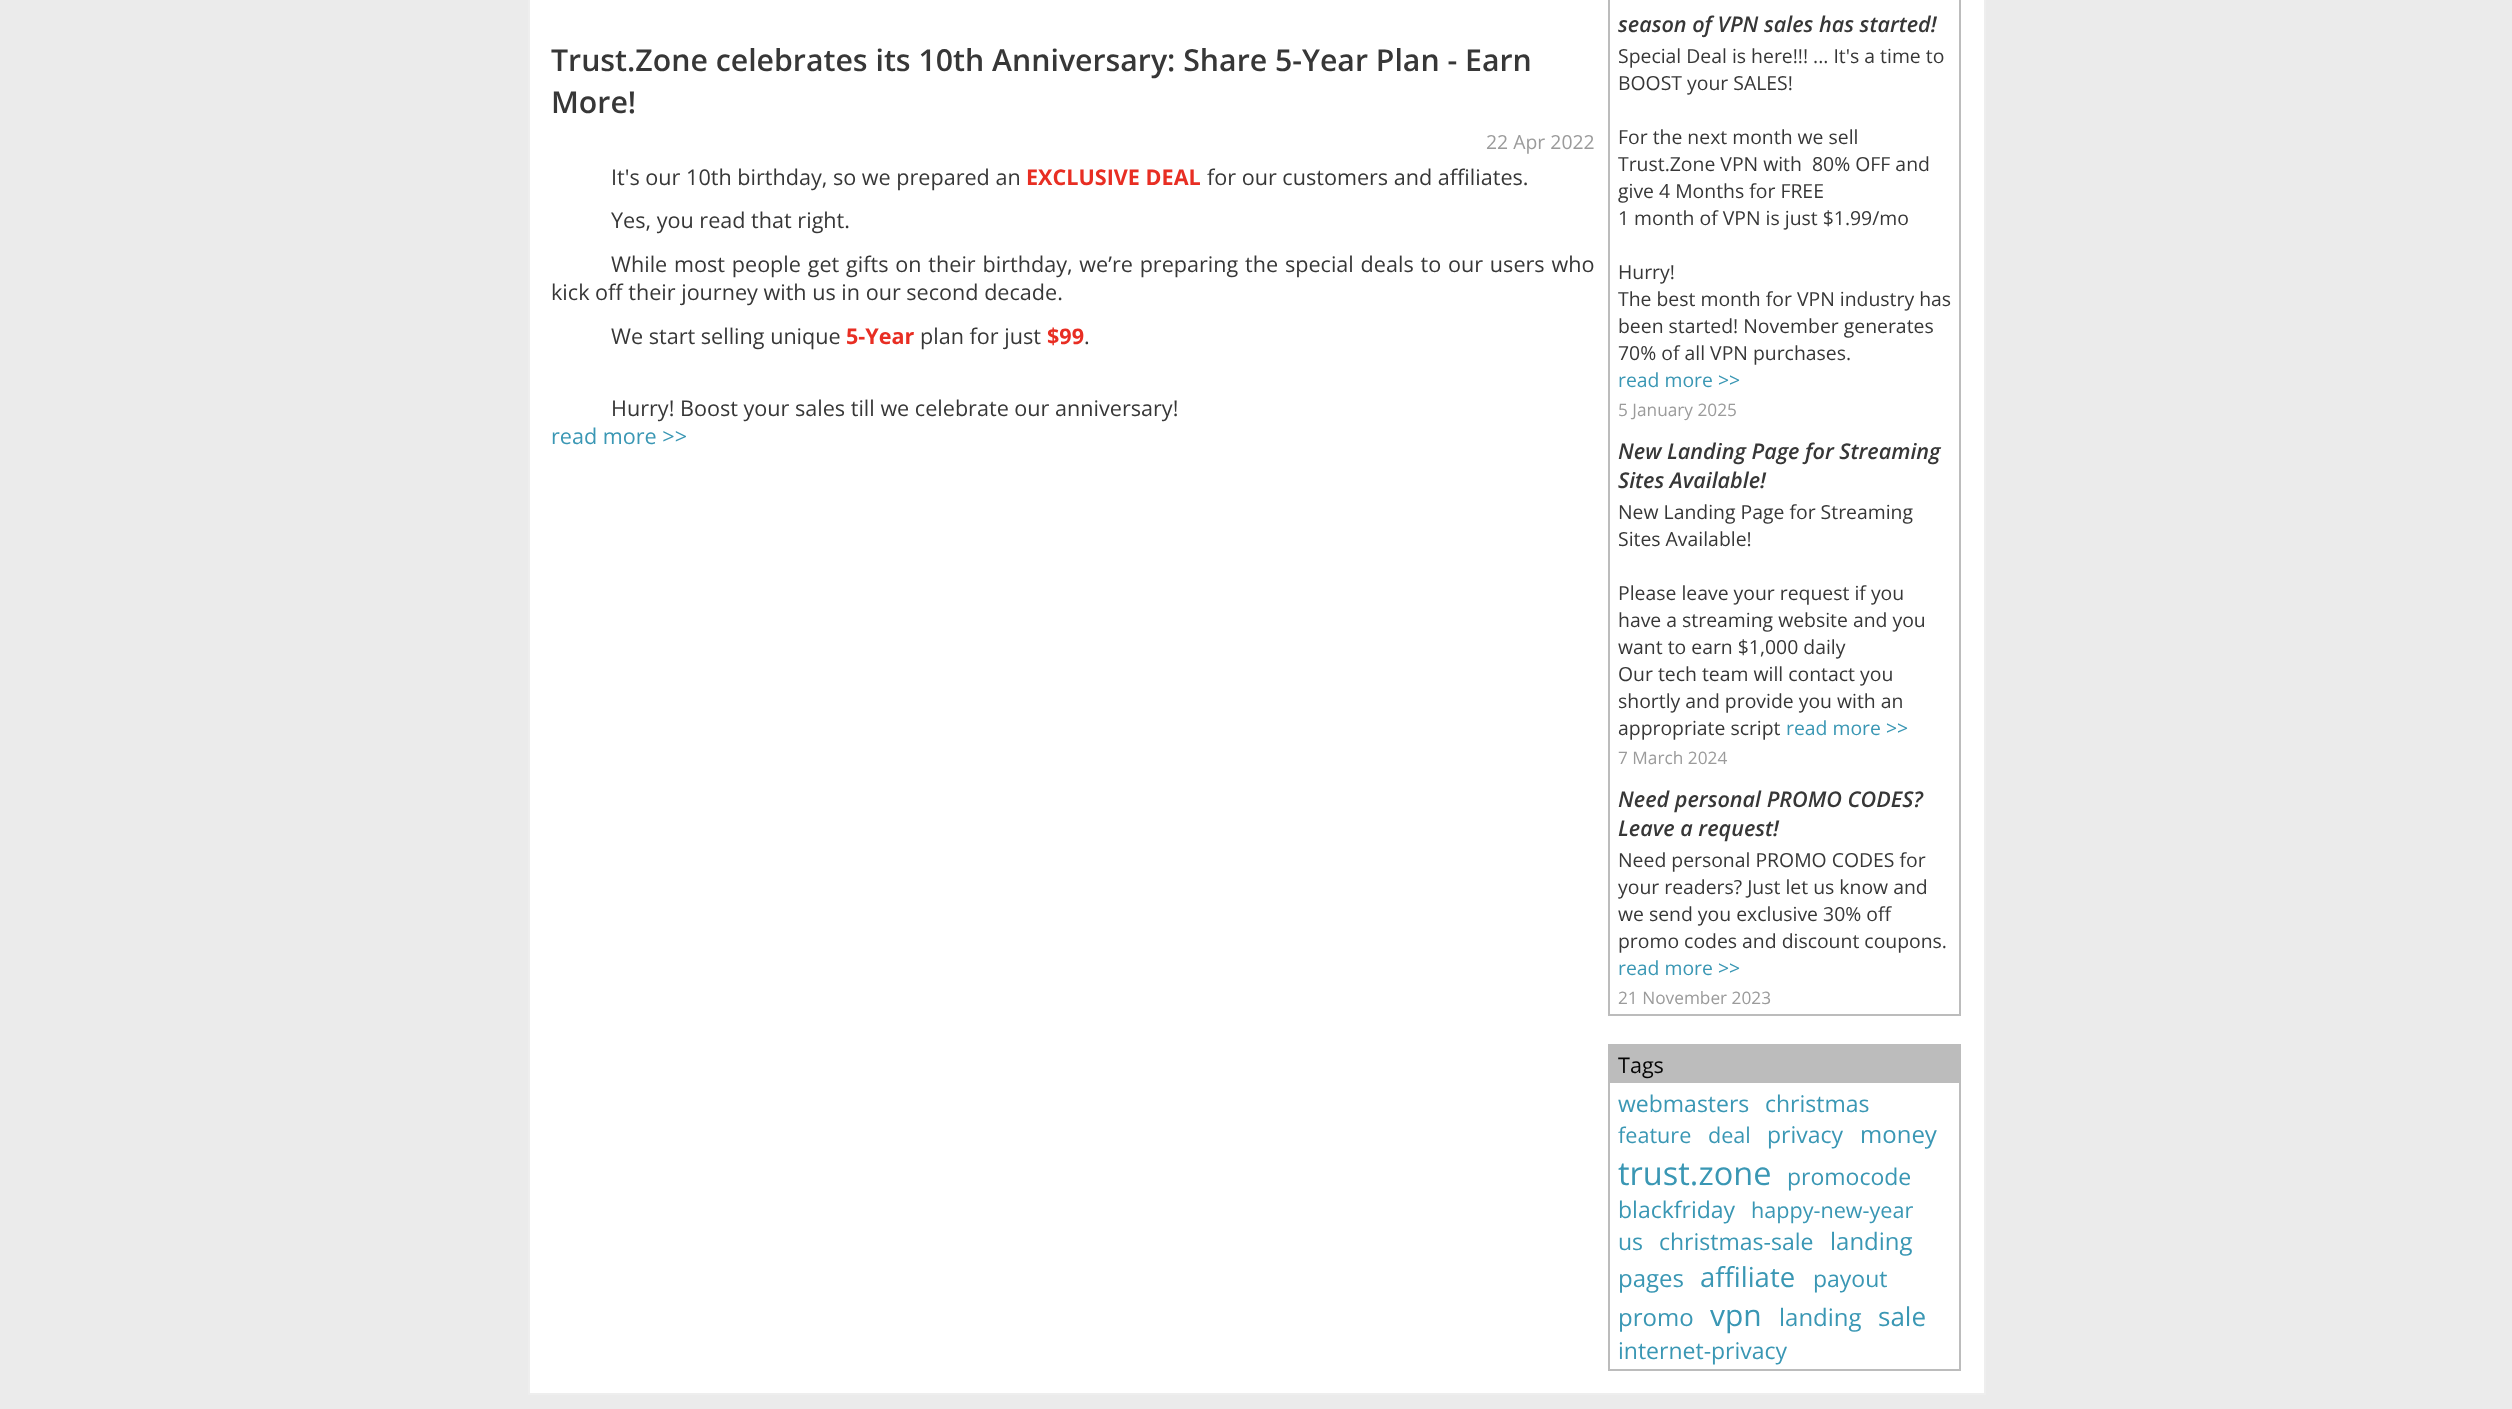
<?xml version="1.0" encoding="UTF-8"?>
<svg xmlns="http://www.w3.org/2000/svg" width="2512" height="1409">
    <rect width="100%" height="100%" fill="#EBEBEB"/>
    <rect x="529" y="-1" width="1456" height="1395" fill="#FFFFFF" stroke="#EEEEEE" stroke-width="2"/>
    <text font-family="Open Sans" font-size="30.25" font-weight="600" fill="#373737">
        <tspan x="551" y="71">Trust.Zone celebrates its 10th Anniversary: Share 5-Year Plan - Earn</tspan>
        <tspan x="551" y="113">More!</tspan>
    </text>
    <text x="1486" y="149" font-family="Open Sans" font-size="19.4" fill="#9B9B9B">22 Apr 2022</text>
    <text x="611" y="185" font-family="Open Sans" font-size="21.6" fill="#373737">It's our 10th birthday, so we prepared an</text>
    <text x="1026" y="185" font-family="Open Sans" font-size="21.6" font-weight="700" fill="#E82E23">EXCLUSIVE DEAL</text>
    <text x="1207" y="185" font-family="Open Sans" font-size="21.6" fill="#373737">for our customers and affiliates.</text>
    <text x="611" y="228" font-family="Open Sans" font-size="21.6" fill="#373737">Yes, you read that right.</text>
    <text x="611" y="272" word-spacing="1.2" font-family="Open Sans" font-size="21.6" fill="#373737">While most people get gifts on their birthday, we’re preparing the special deals to our users who</text>
    <text x="551" y="300" font-family="Open Sans" font-size="21.6" fill="#373737">kick off their journey with us in our second decade.</text>
    <text x="611" y="344" font-family="Open Sans" font-size="21.6" fill="#373737">We start selling unique</text>
    <text x="846" y="344" font-family="Open Sans" font-size="21.6" font-weight="700" fill="#E82E23">5-Year</text>
    <text x="920" y="344" font-family="Open Sans" font-size="21.6" fill="#373737">plan for just</text>
    <text x="1047" y="344" font-family="Open Sans" font-size="21.6" font-weight="700" fill="#E82E23">$99</text>
    <text x="1084" y="344" font-family="Open Sans" font-size="21.6" fill="#373737">.</text>
    <text x="611" y="416" font-family="Open Sans" font-size="21.6" fill="#373737">Hurry! Boost your sales till we celebrate our anniversary!</text>
    <text x="551" y="444" font-family="Open Sans" font-size="21.6" fill="#3A97B4">read more &gt;&gt;</text>
    <rect x="1609" y="-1" width="351" height="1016" fill="none" stroke="#BCBCBC" stroke-width="2"/>
    <text x="1618" y="32" font-family="Open Sans" font-size="21.6" font-weight="600" font-style="italic" fill="#373737">season of VPN sales has started!</text>
    <text font-family="Open Sans" font-size="19.4" fill="#373737">
        <tspan x="1618" y="63">Special Deal is here!!! ... It's a time to</tspan>
        <tspan x="1618" y="90">BOOST your SALES!</tspan>
    </text>
    <text font-family="Open Sans" font-size="19.4" fill="#373737" xml:space="preserve"><tspan x="1618" y="144">For the next month we sell</tspan><tspan x="1618" y="171">Trust.Zone VPN with  80% OFF and</tspan><tspan x="1618" y="198">give 4 Months for FREE</tspan><tspan x="1618" y="225">1 month of VPN is just $1.99/mo</tspan></text>
    <text font-family="Open Sans" font-size="19.4" fill="#373737">
        <tspan x="1618" y="279">Hurry!</tspan>
        <tspan x="1618" y="306">The best month for VPN industry has</tspan>
        <tspan x="1618" y="333">been started! November generates</tspan>
        <tspan x="1618" y="360">70% of all VPN purchases.</tspan>
    </text>
    <text x="1618" y="387" font-family="Open Sans" font-size="19.4" fill="#3A97B4">read more &gt;&gt;</text>
    <text x="1618" y="416" font-family="Open Sans" font-size="17.25" fill="#9B9B9B">5 January 2025</text>
    <text font-family="Open Sans" font-size="21.6" font-weight="600" font-style="italic" fill="#373737">
        <tspan x="1618" y="459">New Landing Page for Streaming</tspan>
        <tspan x="1618" y="488">Sites Available!</tspan>
    </text>
    <text font-family="Open Sans" font-size="19.4" fill="#373737">
        <tspan x="1618" y="519">New Landing Page for Streaming</tspan>
        <tspan x="1618" y="546">Sites Available!</tspan>
    </text>
    <text font-family="Open Sans" font-size="19.4" fill="#373737">
        <tspan x="1618" y="600">Please leave your request if you</tspan>
        <tspan x="1618" y="627">have a streaming website and you</tspan>
        <tspan x="1618" y="654">want to earn $1,000 daily</tspan>
        <tspan x="1618" y="681">Our tech team will contact you</tspan>
        <tspan x="1618" y="708">shortly and provide you with an</tspan>
        <tspan x="1618" y="735">appropriate script</tspan>
    </text>
    <text x="1786" y="735" font-family="Open Sans" font-size="19.4" fill="#3A97B4">read more &gt;&gt;</text>
    <text x="1618" y="764" font-family="Open Sans" font-size="17.25" fill="#9B9B9B">7 March 2024</text>
    <text font-family="Open Sans" font-size="21.6" font-weight="600" font-style="italic" fill="#373737">
        <tspan x="1618" y="807">Need personal PROMO CODES?</tspan>
        <tspan x="1618" y="836">Leave a request!</tspan>
    </text>
    <text font-family="Open Sans" font-size="19.4" fill="#373737">
        <tspan x="1618" y="867">Need personal PROMO CODES for</tspan>
        <tspan x="1618" y="894">your readers? Just let us know and</tspan>
        <tspan x="1618" y="921">we send you exclusive 30% off</tspan>
        <tspan x="1618" y="948">promo codes and discount coupons.</tspan>
    </text>
    <text x="1618" y="975" font-family="Open Sans" font-size="19.4" fill="#3A97B4">read more &gt;&gt;</text>
    <text x="1618" y="1004" font-family="Open Sans" font-size="17.25" fill="#9B9B9B">21 November 2023</text>
    <rect x="1609" y="1045" width="351" height="325" fill="none" stroke="#BCBCBC" stroke-width="2"/>
    <rect x="1610" y="1046" width="349" height="37" fill="#BCBCBC"/>
    <text x="1618" y="1073" font-family="Open Sans" font-size="21.6" fill="#050505">Tags</text>
    <text x="1618" y="1112" font-family="Open Sans" font-size="23" fill="#3A97B4">webmasters</text>
    <text x="1765" y="1112" font-family="Open Sans" font-size="23" fill="#3A97B4">christmas</text>
    <text x="1618" y="1143" font-family="Open Sans" font-size="21.6" fill="#3A97B4">feature</text>
    <text x="1708" y="1143" font-family="Open Sans" font-size="21.6" fill="#3A97B4">deal</text>
    <text x="1767" y="1143" font-family="Open Sans" font-size="23" fill="#3A97B4">privacy</text>
    <text x="1860" y="1143" font-family="Open Sans" font-size="24" fill="#3A97B4">money</text>
    <text x="1618" y="1185" font-family="Open Sans" font-size="32.5" fill="#3A97B4">trust.zone</text>
    <text x="1787" y="1185" font-family="Open Sans" font-size="23" fill="#3A97B4">promocode</text>
    <text x="1618" y="1218" font-family="Open Sans" font-size="23" fill="#3A97B4">blackfriday</text>
    <text x="1751" y="1218" font-family="Open Sans" font-size="21.6" fill="#3A97B4">happy-new-year</text>
    <text x="1618" y="1250" font-family="Open Sans" font-size="23" fill="#3A97B4">us</text>
    <text x="1659" y="1250" font-family="Open Sans" font-size="23" fill="#3A97B4">christmas-sale</text>
    <text x="1830" y="1250" font-family="Open Sans" font-size="24" fill="#3A97B4">landing</text>
    <text x="1618" y="1287" font-family="Open Sans" font-size="24" fill="#3A97B4">pages</text>
    <text x="1700" y="1287" font-family="Open Sans" font-size="27.5" fill="#3A97B4">affiliate</text>
    <text x="1813" y="1287" font-family="Open Sans" font-size="23" fill="#3A97B4">payout</text>
    <text x="1618" y="1326" font-family="Open Sans" font-size="24" fill="#3A97B4">promo</text>
    <text x="1710" y="1326" font-family="Open Sans" font-size="30" fill="#3A97B4">vpn</text>
    <text x="1779" y="1326" font-family="Open Sans" font-size="24" fill="#3A97B4">landing</text>
    <text x="1878" y="1326" font-family="Open Sans" font-size="26" fill="#3A97B4">sale</text>
    <text x="1618" y="1359" font-family="Open Sans" font-size="23" fill="#3A97B4">internet-privacy</text>
</svg>
